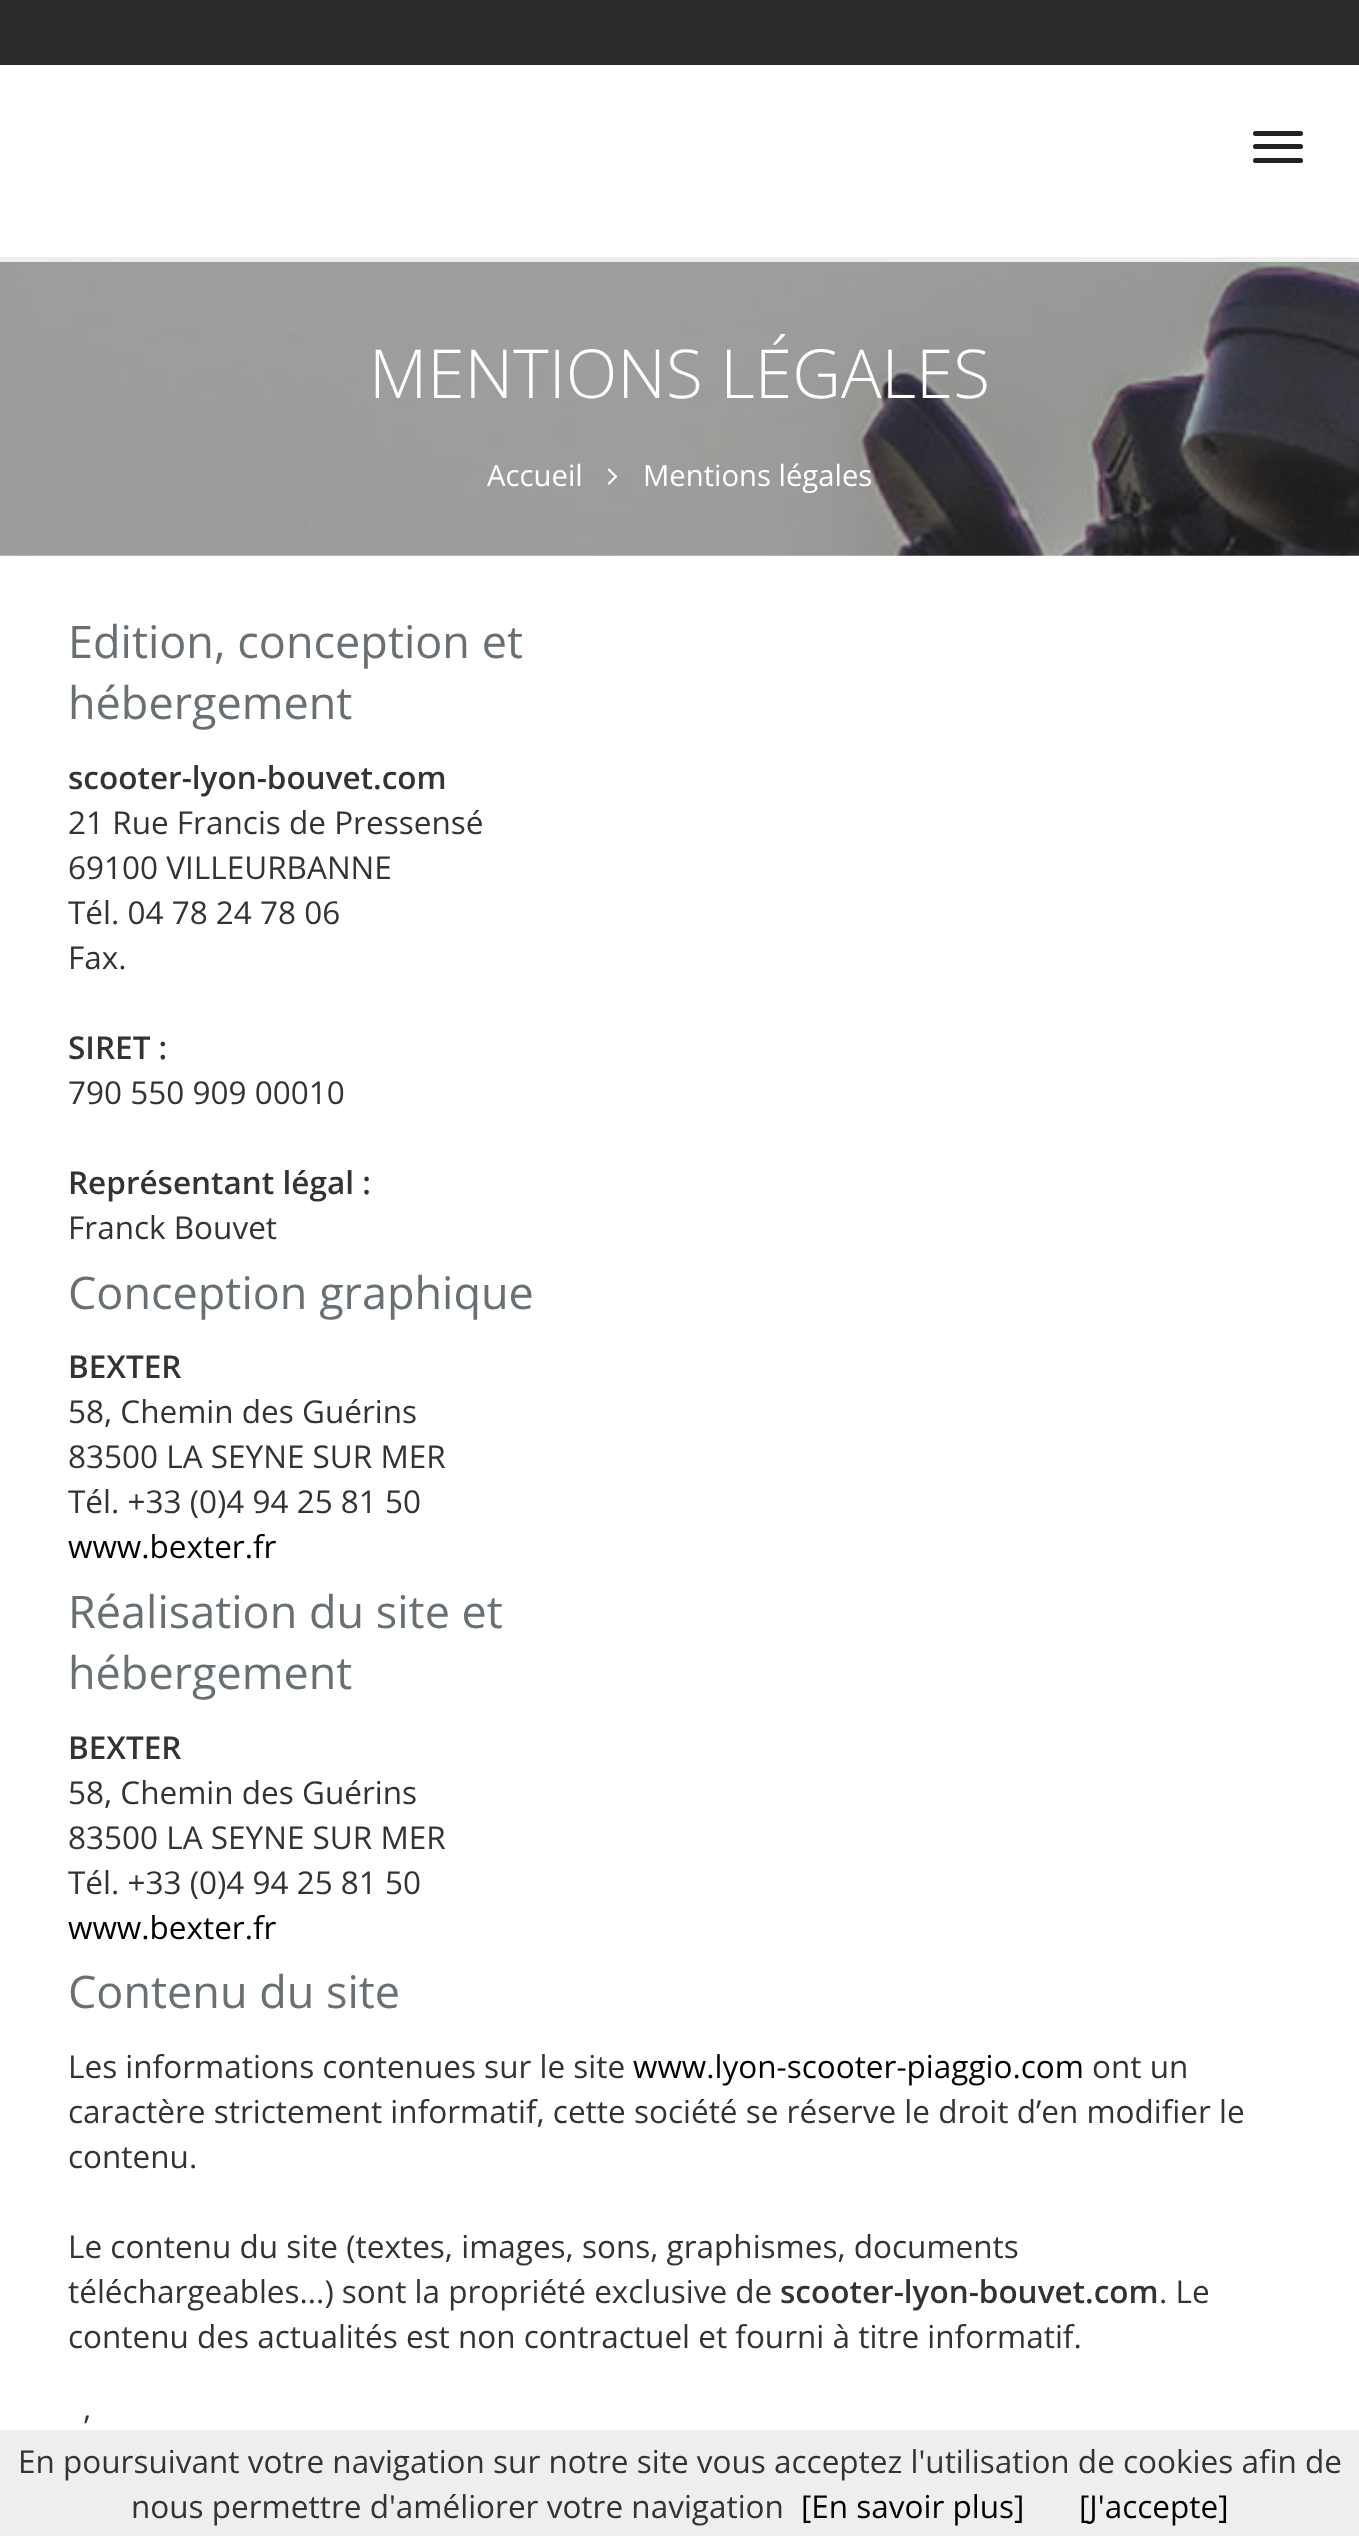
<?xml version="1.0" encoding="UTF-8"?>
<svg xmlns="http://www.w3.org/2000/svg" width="1359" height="2536">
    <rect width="100%" height="100%" fill="#FFFFFF"/>
    <rect x="0" y="257" width="1359" height="5" fill="#EEEEEE"/>
    <rect x="0" y="0" width="1359" height="65" fill="#2A2A2A"/>
    <rect x="1253" y="131" width="50" height="5" rx="2.5" fill="#222222"/>
    <rect x="1253" y="144" width="50" height="5" rx="2.5" fill="#222222"/>
    <rect x="1253" y="158" width="50" height="5" rx="2.5" fill="#222222"/>
    <image x="0" y="262" width="1359" height="294" href="img_01.png"/>
    <text x="369" y="398" font-family="Open Sans" font-size="67.5" font-weight="300" fill="#FFFFFF">MENTIONS LÉGALES</text>
    <text x="487" y="486" font-family="Open Sans" font-size="29.25" fill="#FFFFFF">Accueil</text>
    <image x="607" y="468" width="11" height="17" href="img_02.png"/>
    <text x="643" y="486" font-family="Open Sans" font-size="29.25" fill="#FFFFFF">Mentions légales</text>
    <text font-family="Open Sans" font-size="45" fill="#687074">
        <tspan x="68" y="658">Edition, conception et</tspan>
        <tspan x="68" y="719">hébergement</tspan>
    </text>
    <text x="68" y="789" font-family="Open Sans" font-size="31.5" font-weight="600" fill="#333333">scooter-lyon-bouvet.com</text>
    <text font-family="Open Sans" font-size="31.5" fill="#333333">
        <tspan x="68" y="834">21 Rue Francis de Pressensé</tspan>
        <tspan x="68" y="879">69100 VILLEURBANNE</tspan>
        <tspan x="68" y="924">Tél. 04 78 24 78 06</tspan>
        <tspan x="68" y="969">Fax.</tspan>
    </text>
    <text x="68" y="1059" font-family="Open Sans" font-size="31.5" font-weight="600" fill="#333333">SIRET :</text>
    <text x="68" y="1104" font-family="Open Sans" font-size="31.5" fill="#333333">790 550 909 00010</text>
    <text x="68" y="1194" font-family="Open Sans" font-size="31.5" font-weight="600" fill="#333333">Représentant légal :</text>
    <text x="68" y="1239" font-family="Open Sans" font-size="31.5" fill="#333333">Franck Bouvet</text>
    <text x="68" y="1309" font-family="Open Sans" font-size="45" fill="#687074">Conception graphique</text>
    <text x="68" y="1378" font-family="Open Sans" font-size="31.5" font-weight="600" fill="#333333">BEXTER</text>
    <text font-family="Open Sans" font-size="31.5" fill="#333333">
        <tspan x="68" y="1423">58, Chemin des Guérins</tspan>
        <tspan x="68" y="1468">83500 LA SEYNE SUR MER</tspan>
        <tspan x="68" y="1513">Tél. +33 (0)4 94 25 81 50</tspan>
    </text>
    <text x="68" y="1558" font-family="Open Sans" font-size="31.5" fill="#000000">www.bexter.fr</text>
    <text font-family="Open Sans" font-size="45" fill="#687074">
        <tspan x="68" y="1628">Réalisation du site et</tspan>
        <tspan x="68" y="1689">hébergement</tspan>
    </text>
    <text x="68" y="1759" font-family="Open Sans" font-size="31.5" font-weight="600" fill="#333333">BEXTER</text>
    <text font-family="Open Sans" font-size="31.5" fill="#333333">
        <tspan x="68" y="1804">58, Chemin des Guérins</tspan>
        <tspan x="68" y="1849">83500 LA SEYNE SUR MER</tspan>
        <tspan x="68" y="1894">Tél. +33 (0)4 94 25 81 50</tspan>
    </text>
    <text x="68" y="1939" font-family="Open Sans" font-size="31.5" fill="#000000">www.bexter.fr</text>
    <text x="68" y="2008" font-family="Open Sans" font-size="45" fill="#687074">Contenu du site</text>
    <text x="68" y="2078" font-family="Open Sans" font-size="31.5" fill="#333333">Les informations contenues sur le site</text>
    <text x="633" y="2078" font-family="Open Sans" font-size="31.5" fill="#000000">www.lyon-scooter-piaggio.com</text>
    <text x="1092" y="2078" font-family="Open Sans" font-size="31.5" fill="#333333">ont un</text>
    <text font-family="Open Sans" font-size="31.5" fill="#333333">
        <tspan x="68" y="2123">caractère strictement informatif, cette société se réserve le droit d’en modifier le</tspan>
        <tspan x="68" y="2168">contenu.</tspan>
    </text>
    <text font-family="Open Sans" font-size="31.5" fill="#333333">
        <tspan x="68" y="2258">Le contenu du site (textes, images, sons, graphismes, documents</tspan>
        <tspan x="68" y="2303">téléchargeables...) sont la propriété exclusive de</tspan>
    </text>
    <text x="780" y="2303" font-family="Open Sans" font-size="31.5" font-weight="600" fill="#333333">scooter-lyon-bouvet.com</text>
    <text x="1159" y="2303" font-family="Open Sans" font-size="31.5" fill="#333333">. Le</text>
    <text x="68" y="2348" font-family="Open Sans" font-size="31.5" fill="#333333">contenu des actualités est non contractuel et fourni à titre informatif.</text>
    <text x="84" y="2438" font-family="Open Sans" font-size="31.5" fill="#333333">’</text>
    <rect x="0" y="2430" width="1359" height="106" fill="#EEEEEE"/>
    <text x="18" y="2473" font-family="Open Sans" font-size="31.5" fill="#333333">En poursuivant votre navigation sur notre site vous acceptez l'utilisation de cookies afin de</text>
    <text x="131" y="2518" font-family="Open Sans" font-size="31.5" fill="#333333">nous permettre d'améliorer votre navigation</text>
    <text x="801" y="2518" font-family="Open Sans" font-size="31.5" fill="#000000">[En savoir plus]</text>
    <text x="1079" y="2518" font-family="Open Sans" font-size="31.5" fill="#000000">[J'accepte]</text>
</svg>
